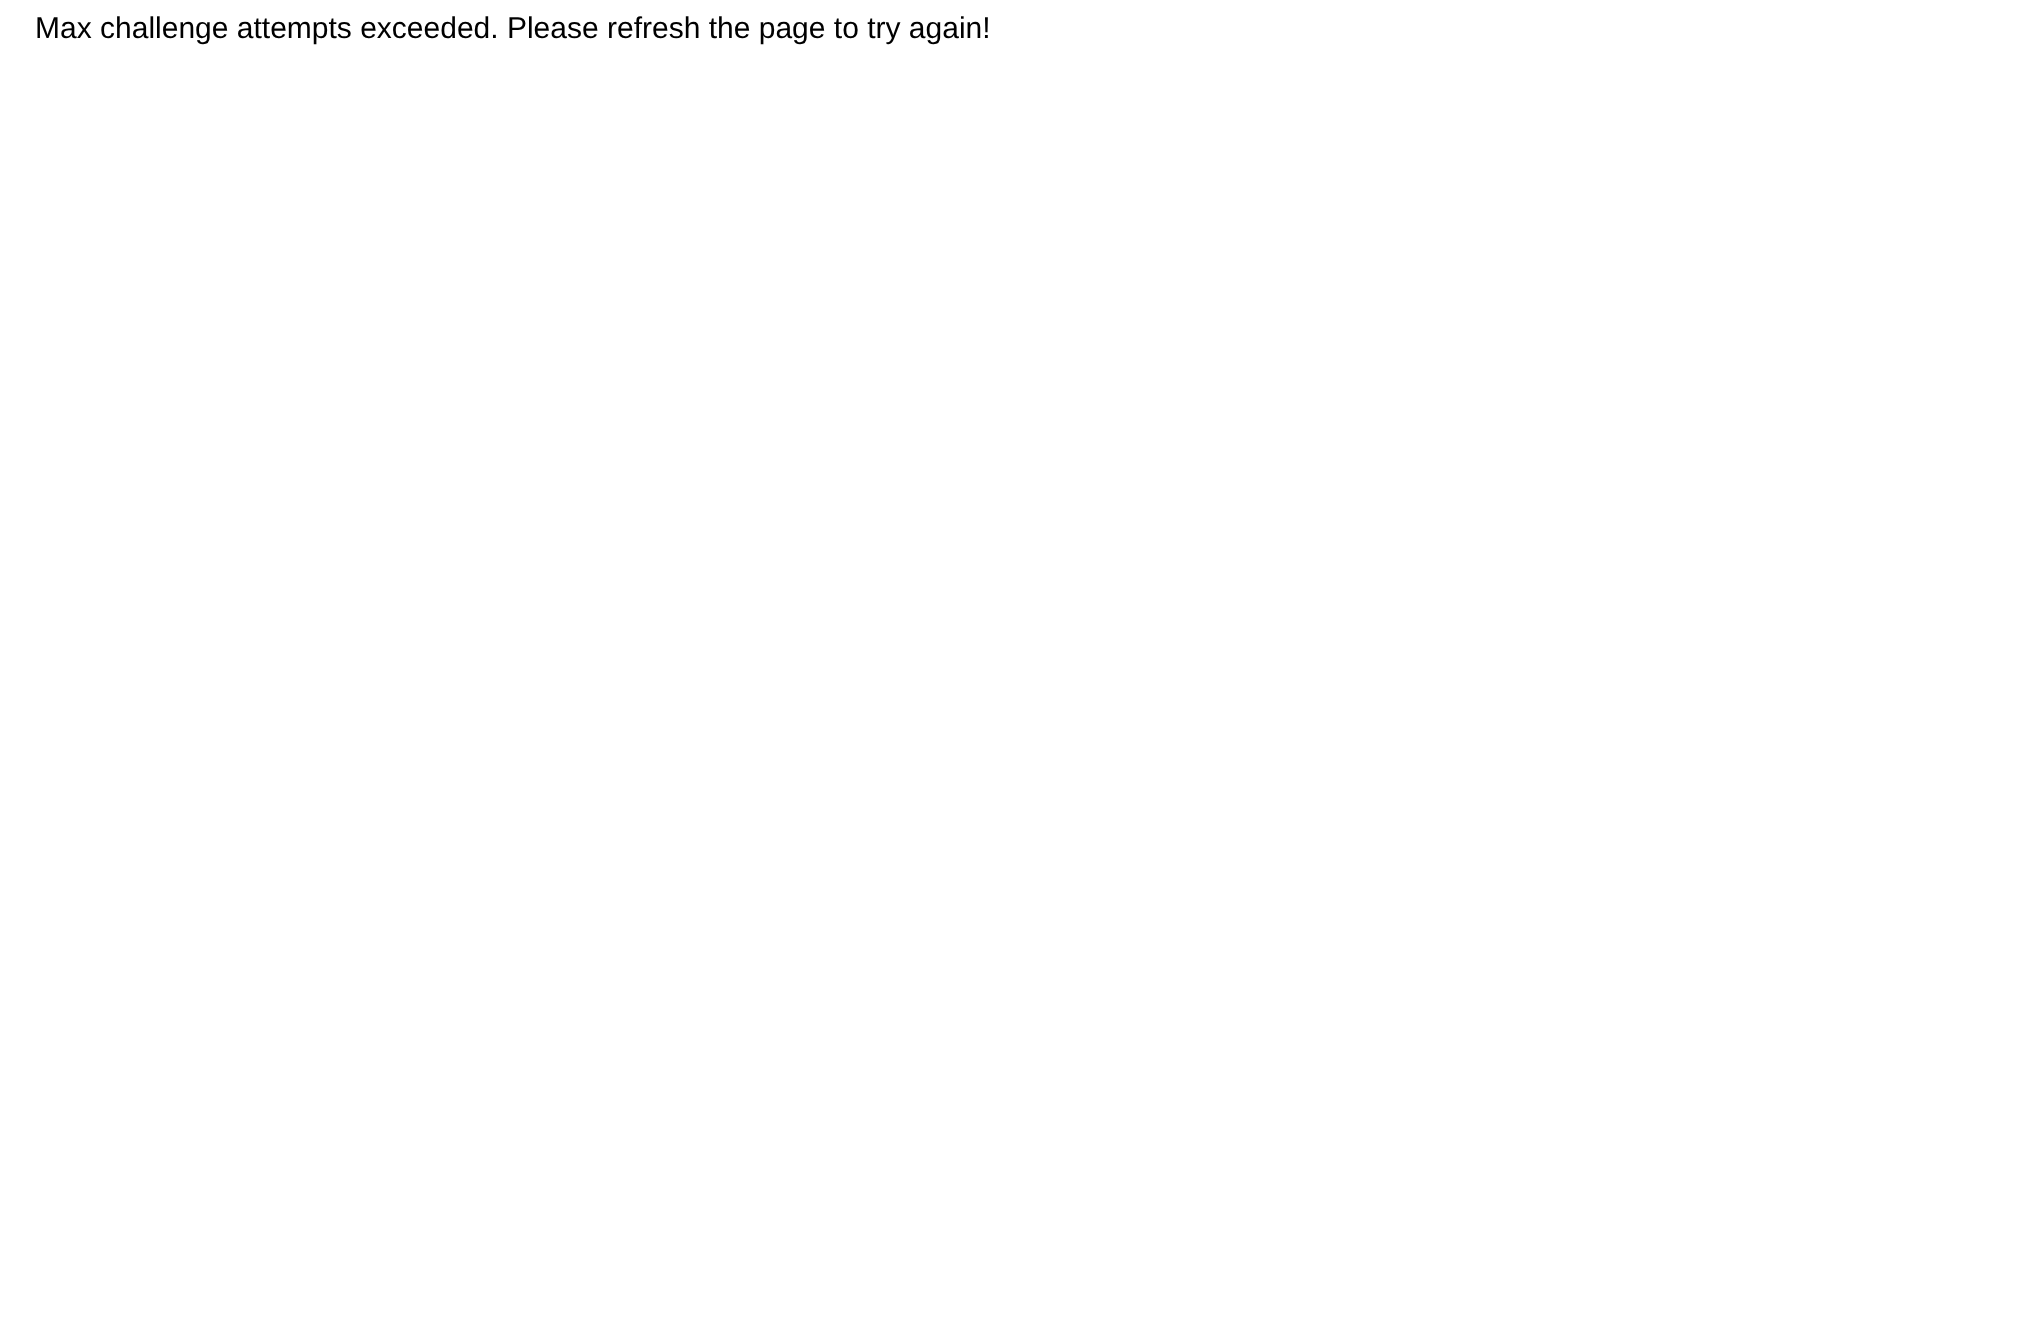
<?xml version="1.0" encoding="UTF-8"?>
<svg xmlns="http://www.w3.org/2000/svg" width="2038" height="1328">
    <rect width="100%" height="100%" fill="#FFFFFF"/>
    <text x="35" y="38" font-family="Liberation Sans" font-size="30" fill="#000000">Max challenge attempts exceeded. Please refresh the page to try again!</text>
</svg>
